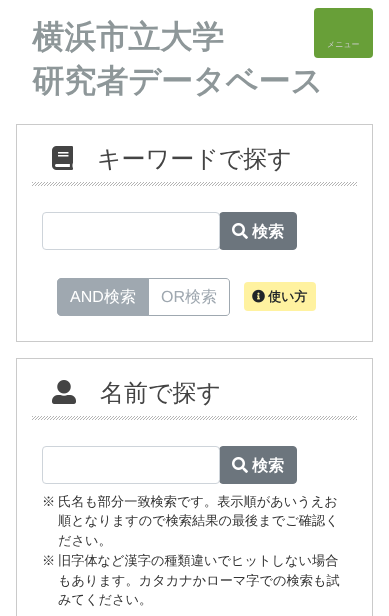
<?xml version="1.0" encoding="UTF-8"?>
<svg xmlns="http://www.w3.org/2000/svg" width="389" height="616">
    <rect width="100%" height="100%" fill="#FFFFFF"/>
    <text x="32" y="48" font-family="WenQuanYi Zen Hei" font-size="32" font-weight="700" fill="#8E9799">横浜市立大学</text>
    <rect x="314" y="8" width="59" height="50" rx="4" fill="#689F38"/>
    <text x="327" y="47" font-family="WenQuanYi Zen Hei" font-size="8" font-weight="500" fill="#CCCCCC">メニュー</text>
    <text x="32" y="92" font-family="WenQuanYi Zen Hei" font-size="32" font-weight="700" fill="#8E9799">研究者データベース</text>
    <rect x="16.5" y="124.5" width="356" height="217" fill="none" stroke="#CACACA"/>
    <image x="52" y="146" width="21" height="24" href="img_01.png"/>
    <text x="97" y="167" font-family="WenQuanYi Zen Hei" font-size="24" font-weight="500" fill="#444444">キーワードで探す</text>
    <image x="32" y="182" width="325" height="4" href="img_02.png"/>
    <rect x="219.5" y="212.5" width="77" height="37" rx="3.5" fill="#6C757D" stroke="#6C757D"/>
    <rect x="42.5" y="212.5" width="177" height="37" rx="3.5" fill="none" stroke="#CED4DA"/>
    <image x="232" y="223" width="16" height="16" href="img_03.png"/>
    <text x="252" y="237" font-family="WenQuanYi Zen Hei" font-size="16" font-weight="700" fill="#FFFFFF">検索</text>
    <path d="M 148.5 278.5 H 226 C 228 278.5 229.5 280 229.5 282 V 312 C 229.5 314 228 315.5 226 315.5 H 148.5 Z" fill="none" stroke="#9FA8B0"/>
    <path d="M 61 278.5 H 148.5 V 315.5 H 61 C 59 315.5 57.5 314 57.5 312 V 282 C 57.5 280 59 278.5 61 278.5 Z" fill="#9FA8B0" stroke="#9FA8B0"/>
    <text x="70" y="302" font-family="Liberation Sans" font-size="16" fill="#FFFFFF">AND</text>
    <text x="104" y="302" font-family="WenQuanYi Zen Hei" font-size="16" font-weight="500" fill="#FFFFFF">検索</text>
    <text x="161" y="302" font-family="Liberation Sans" font-size="16" fill="#9FA8B0">OR</text>
    <text x="185" y="302" font-family="WenQuanYi Zen Hei" font-size="16" font-weight="500" fill="#9FA8B0">検索</text>
    <rect x="244" y="282" width="72" height="29" rx="4" fill="#FFF2A0"/>
    <image x="252" y="289" width="13" height="14" href="img_04.png"/>
    <text x="268" y="301" font-family="WenQuanYi Zen Hei" font-size="13" font-weight="700" fill="#212529">使い方</text>
    <rect x="16.5" y="358.5" width="356" height="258" fill="none" stroke="#CACACA"/>
    <image x="52" y="380" width="24" height="24" href="img_05.png"/>
    <text x="100" y="401" font-family="WenQuanYi Zen Hei" font-size="24" font-weight="500" fill="#444444">名前で探す</text>
    <image x="32" y="416" width="325" height="4" href="img_02.png"/>
    <rect x="219.5" y="446.5" width="77" height="37" rx="3.5" fill="#6C757D" stroke="#6C757D"/>
    <rect x="42.5" y="446.5" width="177" height="37" rx="3.5" fill="none" stroke="#CED4DA"/>
    <image x="232" y="457" width="16" height="16" href="img_03.png"/>
    <text x="252" y="471" font-family="WenQuanYi Zen Hei" font-size="16" font-weight="700" fill="#FFFFFF">検索</text>
    <text x="42" y="506" font-family="WenQuanYi Zen Hei" font-size="13.2" font-weight="500" fill="#333333">※</text>
    <text font-family="WenQuanYi Zen Hei" font-size="13.2" font-weight="500" fill="#333333">
        <tspan x="58" y="506">氏名も部分一致検索です。表示順があいうえお</tspan>
        <tspan x="58" y="525">順となりますので検索結果の最後までご確認く</tspan>
        <tspan x="58" y="545">ださい。</tspan>
    </text>
    <text x="42" y="565" font-family="WenQuanYi Zen Hei" font-size="13.2" font-weight="500" fill="#333333">※</text>
    <text font-family="WenQuanYi Zen Hei" font-size="13.2" font-weight="500" fill="#333333">
        <tspan x="58" y="565">旧字体など漢字の種類違いでヒットしない場合</tspan>
        <tspan x="58" y="585">もあります。カタカナかローマ字での検索も試</tspan>
        <tspan x="58" y="604">みてください。</tspan>
    </text>
</svg>
